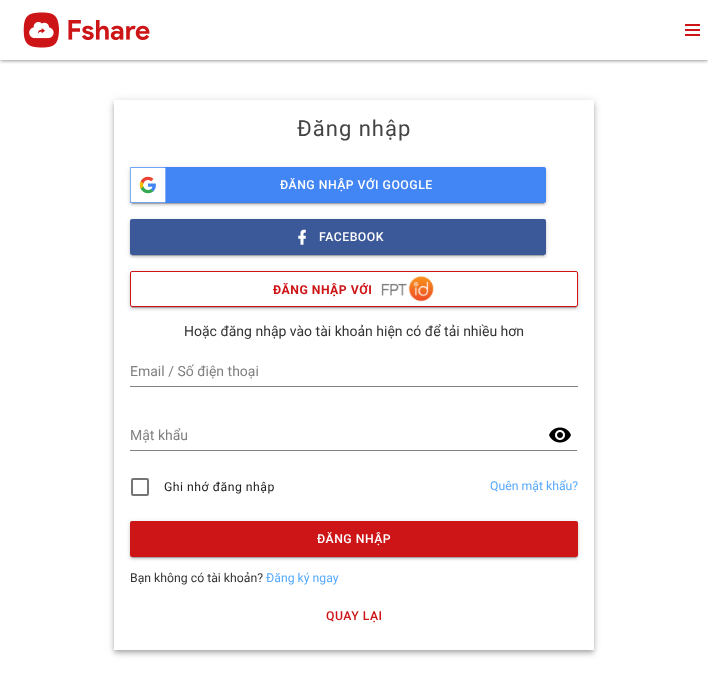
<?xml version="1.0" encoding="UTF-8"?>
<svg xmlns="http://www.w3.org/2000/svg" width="708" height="683">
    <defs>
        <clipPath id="clip1"><rect x="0" y="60" width="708" height="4"/></clipPath>
        <filter id="blur1" x="-50%" y="-200%" width="200%" height="500%"><feGaussianBlur stdDeviation="2"/></filter>
        <clipPath id="clip2"><path d="M 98 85 H 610 V 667 H 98 Z M 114 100 H 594 V 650 H 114 Z" clip-rule="evenodd"/></clipPath>
        <filter id="blur2" x="-50%" y="-200%" width="200%" height="500%"><feGaussianBlur stdDeviation="5"/></filter>
        <clipPath id="clip3"><path d="M 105 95 H 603 V 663 H 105 Z M 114 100 H 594 V 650 H 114 Z" clip-rule="evenodd"/></clipPath>
        <filter id="blur3" x="-50%" y="-200%" width="200%" height="500%"><feGaussianBlur stdDeviation="2.5"/></filter>
        <clipPath id="clip4"><path d="M 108 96 H 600 V 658 H 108 Z M 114 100 H 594 V 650 H 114 Z" clip-rule="evenodd"/></clipPath>
        <filter id="blur4" x="-50%" y="-200%" width="200%" height="500%"><feGaussianBlur stdDeviation="1"/></filter>
        <filter id="blur5" x="-50%" y="-200%" width="200%" height="500%"><feGaussianBlur stdDeviation="0.5"/></filter>
    </defs>
    <rect width="100%" height="100%" fill="#FFFFFF"/>
    <g clip-path="url(#clip1)">
        <rect x="0" y="0" width="708" height="60" fill="#666666" filter="url(#blur1)"/>
    </g>
    <image x="23" y="12" width="127" height="36" href="img_01.png"/>
    <image x="685" y="24" width="15" height="12" href="img_02.png"/>
    <g clip-path="url(#clip2)">
        <rect x="114" y="101" width="480" height="550" fill="#000000" fill-opacity="0.12" filter="url(#blur2)"/>
    </g>
    <g clip-path="url(#clip3)">
        <rect x="114" y="104" width="480" height="550" fill="#000000" fill-opacity="0.14" filter="url(#blur3)"/>
    </g>
    <g clip-path="url(#clip4)">
        <rect x="115" y="103" width="478" height="548" fill="#000000" fill-opacity="0.2" filter="url(#blur1)"/>
    </g>
    <text x="297" y="136" font-family="Roboto" font-size="22" letter-spacing="1" fill="#444444">Đăng nhập</text>
    <rect x="130" y="168" width="416" height="36" rx="2" fill="#000000" fill-opacity="0.12" filter="url(#blur3)"/>
    <rect x="130" y="169" width="416" height="36" rx="2" fill="#000000" fill-opacity="0.14" filter="url(#blur4)"/>
    <rect x="132" y="172" width="412" height="32" fill="#000000" fill-opacity="0.2" filter="url(#blur5)"/>
    <rect x="130" y="167" width="416" height="36" rx="2" fill="#4285F4"/>
    <image x="130" y="167" width="36" height="36" href="img_03.png"/>
    <text x="280" y="189" font-family="Roboto" font-size="12.25" font-weight="500" letter-spacing="0.5" fill="#FFFFFF">ĐĂNG NHẬP VỚI GOOGLE</text>
    <rect x="130" y="220" width="416" height="36" rx="2" fill="#000000" fill-opacity="0.12" filter="url(#blur3)"/>
    <rect x="130" y="221" width="416" height="36" rx="2" fill="#000000" fill-opacity="0.14" filter="url(#blur4)"/>
    <rect x="132" y="224" width="412" height="32" fill="#000000" fill-opacity="0.2" filter="url(#blur5)"/>
    <rect x="130" y="219" width="416" height="36" rx="2" fill="#3B5998"/>
    <image x="298" y="229" width="8" height="16" href="img_04.png"/>
    <text x="319" y="241" font-family="Roboto" font-size="12.25" font-weight="500" letter-spacing="0.5" fill="#FFFFFF">FACEBOOK</text>
    <rect x="130" y="272" width="448" height="36" rx="2" fill="#000000" fill-opacity="0.12" filter="url(#blur3)"/>
    <rect x="130" y="273" width="448" height="36" rx="2" fill="#000000" fill-opacity="0.14" filter="url(#blur4)"/>
    <rect x="132" y="276" width="444" height="32" fill="#000000" fill-opacity="0.2" filter="url(#blur5)"/>
    <rect x="130.5" y="271.5" width="447" height="35" rx="1.5" fill="#FFFFFF" stroke="#CD1417"/>
    <text x="273" y="294" font-family="Roboto" font-size="12.25" font-weight="700" letter-spacing="0.5" fill="#CD1417">ĐĂNG NHẬP VỚI</text>
    <image x="381" y="276" width="53" height="26" href="img_05.png"/>
    <text x="184" y="336" font-family="Roboto" font-size="14" fill="#333333">Hoặc đăng nhập vào tài khoản hiện có để tải nhiều hơn</text>
    <text x="130" y="376" font-family="Roboto" font-size="14" fill="#808080">Email / Số điện thoại</text>
    <rect x="130" y="386" width="448" height="1" fill="#808080"/>
    <text x="130" y="440" font-family="Roboto" font-size="14" fill="#808080">Mật khẩu</text>
    <image x="549" y="427" width="22" height="16" href="img_06.png"/>
    <rect x="130" y="450" width="447" height="1" fill="#808080"/>
    <rect x="132" y="479" width="16" height="16" rx="1" fill="none" stroke="#757575" stroke-width="2"/>
    <text x="164" y="491" font-family="Roboto" font-size="12.25" letter-spacing="0.5" fill="#212121">Ghi nhớ đăng nhập</text>
    <text x="490" y="490" font-family="Roboto" font-size="12.25" fill="#57A9FD">Quên mật khẩu?</text>
    <rect x="130" y="522" width="448" height="36" rx="2" fill="#000000" fill-opacity="0.12" filter="url(#blur3)"/>
    <rect x="130" y="523" width="448" height="36" rx="2" fill="#000000" fill-opacity="0.14" filter="url(#blur4)"/>
    <rect x="132" y="526" width="444" height="32" fill="#000000" fill-opacity="0.2" filter="url(#blur5)"/>
    <rect x="130" y="521" width="448" height="36" rx="2" fill="#CD1417"/>
    <text x="317" y="543" font-family="Roboto" font-size="12.25" font-weight="500" letter-spacing="0.5" fill="#FFFFFF">ĐĂNG NHẬP</text>
    <text x="130" y="582" font-family="Roboto" font-size="12.25" fill="#333333">Bạn không có tài khoản?</text>
    <text x="266" y="582" font-family="Roboto" font-size="12.25" fill="#57A9FD">Đăng ký ngay</text>
    <text x="326" y="620" font-family="Roboto" font-size="12.25" font-weight="500" letter-spacing="0.5" fill="#CD1417">QUAY LẠI</text>
</svg>
